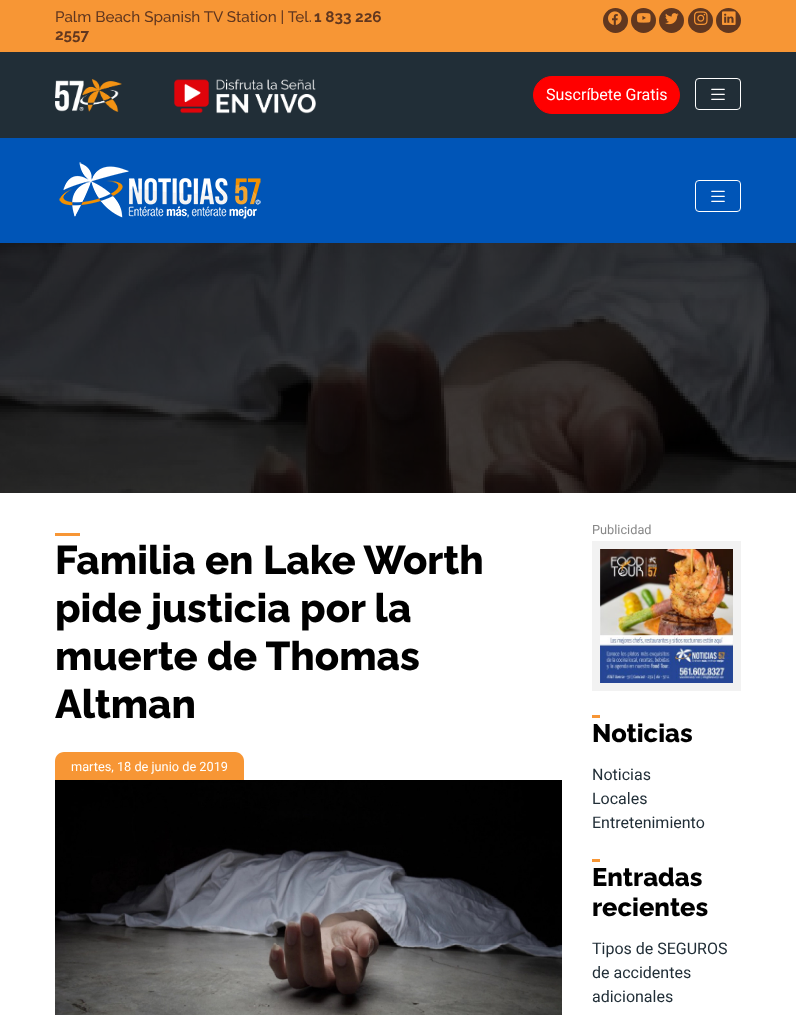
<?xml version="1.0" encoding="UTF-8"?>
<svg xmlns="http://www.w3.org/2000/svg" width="796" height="1015">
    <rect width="100%" height="100%" fill="#FFFFFF"/>
    <rect x="0" y="52" width="796" height="86" fill="#212E37"/>
    <rect x="0" y="0" width="796" height="52" fill="#F79635"/>
    <text x="55" y="22" font-family="Raleway" font-size="15.25" font-weight="500" fill="#61371F">Palm Beach Spanish TV Station | Tel.</text>
    <text x="314" y="22" font-family="Raleway" font-size="15.25" font-weight="700" fill="#61371F">1 833 226</text>
    <text x="55" y="40" font-family="Raleway" font-size="15.25" font-weight="700" fill="#61371F">2557</text>
    <circle cx="615.5" cy="20.5" r="12.5" fill="#61371F"/>
    <image x="608" y="11" width="14" height="14" href="img_01.png"/>
    <circle cx="643.5" cy="20.5" r="12.5" fill="#61371F"/>
    <image x="637" y="13" width="14" height="10" href="img_02.png"/>
    <circle cx="671.5" cy="20.5" r="12.5" fill="#61371F"/>
    <image x="665" y="13" width="14" height="12" href="img_03.png"/>
    <circle cx="700.5" cy="20.5" r="12.5" fill="#61371F"/>
    <image x="694" y="11" width="14" height="14" href="img_04.png"/>
    <circle cx="728.5" cy="20.5" r="12.5" fill="#61371F"/>
    <image x="722" y="11" width="14" height="14" href="img_05.png"/>
    <image x="55" y="79" width="67" height="33" href="img_06.png"/>
    <image x="174" y="79" width="142" height="35" href="img_07.png"/>
    <rect x="533.5" y="76.5" width="146" height="37" rx="18.5" fill="#FF0000" stroke="#FF0000"/>
    <text x="546" y="100" font-family="Roboto" font-size="16" fill="#FFFFFF">Suscríbete Gratis</text>
    <rect x="695.5" y="78.5" width="45" height="31" rx="3.5" fill="none" stroke="#FFFFFF"/>
    <image x="711" y="88" width="14" height="12" href="img_08.png"/>
    <rect x="0" y="138" width="796" height="105" fill="#0055B7"/>
    <image x="59" y="162" width="202" height="57" href="img_09.png"/>
    <rect x="695.5" y="180.5" width="45" height="31" rx="3.5" fill="none" stroke="#FFFFFF"/>
    <image x="711" y="190" width="14" height="12" href="img_10.png"/>
    <image x="0" y="243" width="796" height="250" href="img_11.png"/>
    <rect x="55" y="533" width="25" height="3" fill="#F79635"/>
    <text font-family="Raleway" font-size="40" font-weight="800" fill="#000000">
        <tspan x="55" y="574">Familia en Lake Worth</tspan>
        <tspan x="55" y="622">pide justicia por la</tspan>
        <tspan x="55" y="670">muerte de Thomas</tspan>
        <tspan x="55" y="718">Altman</tspan>
    </text>
    <path d="M 64 752 H 235 C 240 752 244 756 244 761 V 780 H 55 V 761 C 55 756 59 752 64 752 Z" fill="#F79635"/>
    <text x="71" y="771" font-family="Roboto" font-size="12.75" fill="#FFFFFF">martes, 18 de junio de 2019</text>
    <image x="55" y="780" width="507" height="235" href="img_12.png"/>
    <text x="592" y="534" font-family="Roboto" font-size="12.75" fill="#888888">Publicidad</text>
    <rect x="592" y="541" width="149" height="150" fill="#F2F2F2"/>
    <image x="600" y="549" width="133" height="134" href="img_13.png"/>
    <rect x="592" y="715" width="8" height="3" fill="#F79635"/>
    <text x="592" y="742" font-family="Raleway" font-size="25.5" font-weight="800" fill="#000000">Noticias</text>
    <text font-family="Roboto" font-size="16" fill="#212E37">
        <tspan x="592" y="780">Noticias</tspan>
        <tspan x="592" y="804">Locales</tspan>
        <tspan x="592" y="828">Entretenimiento</tspan>
    </text>
    <rect x="592" y="859" width="8" height="3" fill="#F79635"/>
    <text font-family="Raleway" font-size="25.5" font-weight="800" fill="#000000">
        <tspan x="592" y="886">Entradas</tspan>
        <tspan x="592" y="916">recientes</tspan>
    </text>
    <text font-family="Roboto" font-size="16" fill="#212E37">
        <tspan x="592" y="954">Tipos de SEGUROS</tspan>
        <tspan x="592" y="978">de accidentes</tspan>
        <tspan x="592" y="1002">adicionales</tspan>
    </text>
</svg>
